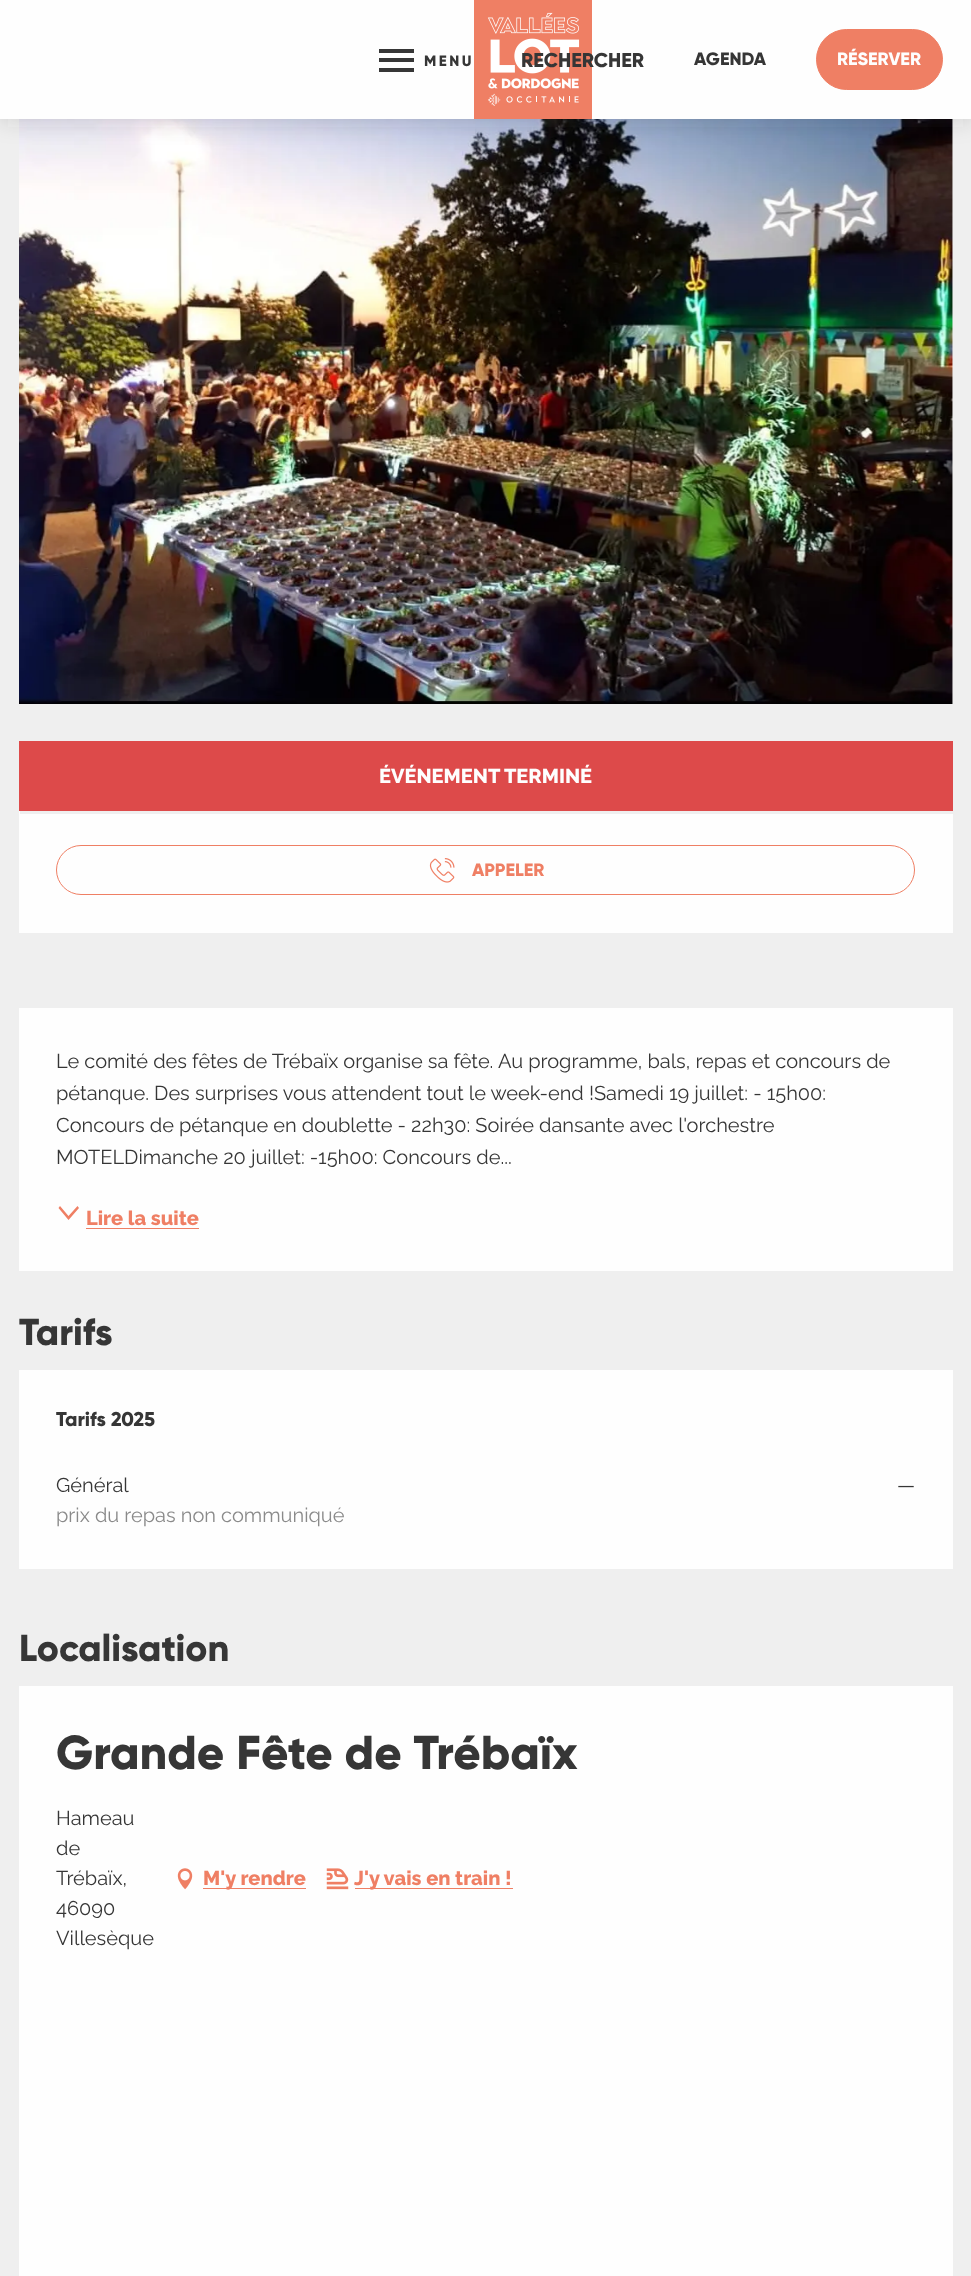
<?xml version="1.0" encoding="UTF-8"?>
<svg xmlns="http://www.w3.org/2000/svg" width="971" height="2276">
    <defs>
        <filter id="blur1" x="-50%" y="-200%" width="200%" height="500%"><feGaussianBlur stdDeviation="12.5"/></filter>
    </defs>
    <rect width="100%" height="100%" fill="#EFEFEF"/>
    <image x="19" y="119" width="934" height="585" href="img_02.png"/>
    <rect x="0" y="0" width="971" height="119" fill="#363636" fill-opacity="0.2" filter="url(#blur1)"/>
    <rect x="0" y="0" width="971" height="119" fill="#FEFEFE"/>
    <rect x="379" y="49" width="35" height="4" fill="#363636"/>
    <rect x="379" y="58" width="35" height="4" fill="#363636"/>
    <rect x="379" y="68" width="35" height="4" fill="#363636"/>
    <text x="424" y="66" font-family="Gilroy" font-size="15" font-weight="800" letter-spacing="2.5" fill="#363636">MENU</text>
    <image x="474" y="0" width="118" height="119" href="img_01.png"/>
    <text x="521" y="67" font-family="Gilroy" font-size="20" font-weight="800" fill="#363636">RECHERCHER</text>
    <text x="694" y="65" font-family="Gilroy" font-size="18" font-weight="800" fill="#363636">AGENDA</text>
    <rect x="816.5" y="29.5" width="126" height="60" rx="30" fill="#EF7F64" stroke="#EF7F64"/>
    <text x="837" y="65" font-family="Gilroy" font-size="18" font-weight="800" fill="#FEFEFE">RÉSERVER</text>
    <rect x="19" y="811" width="934" height="122" fill="#FEFEFE"/>
    <rect x="19" y="741" width="934" height="70" fill="#DD4A4A"/>
    <text x="379" y="783" font-family="Raleway" font-size="20" font-weight="800" fill="#FEFEFE">ÉVÉNEMENT TERMINÉ</text>
    <rect x="20" y="811" width="934" height="3" fill="#EFEFEF"/>
    <rect x="56.5" y="845.5" width="858" height="49" rx="24.5" fill="none" stroke="#EF7F64"/>
    <image x="429" y="858" width="26" height="25" href="img_03.png"/>
    <text x="472" y="876" font-family="Gilroy" font-size="18" font-weight="800" fill="#EF7F64">APPELER</text>
    <rect x="19" y="1008" width="934" height="263" fill="#FEFEFE"/>
    <text font-family="Raleway" font-size="20" fill="#363636">
        <tspan x="56" y="1068">Le comité des fêtes de Trébaïx organise sa fête. Au programme, bals, repas et concours de</tspan>
        <tspan x="56" y="1100">pétanque. Des surprises vous attendent tout le week-end !Samedi 19 juillet: - 15h00:</tspan>
        <tspan x="56" y="1132">Concours de pétanque en doublette - 22h30: Soirée dansante avec l'orchestre</tspan>
        <tspan x="56" y="1164">MOTELDimanche 20 juillet: -15h00: Concours de...</tspan>
    </text>
    <path d="M 60 1206 L 58.5 1208 L 68.5 1220 L 79 1208 L 77.5 1206 L 68.5 1216 Z" fill="#EF7F64"/>
    <text x="86" y="1225" font-family="Raleway" font-size="20" font-weight="800" fill="#EF7F64">Lire la suite</text>
    <rect x="86" y="1228" width="113" height="1" fill="#EF7F64"/>
    <text x="19" y="1345" font-family="Gilroy" font-size="37.5" font-weight="800" fill="#363636">Tarifs</text>
    <rect x="19" y="1370" width="934" height="199" fill="#FEFEFE"/>
    <text x="56" y="1426" font-family="Gilroy" font-size="20" font-weight="800" fill="#363636">Tarifs 2025</text>
    <text x="56" y="1492" font-family="Raleway" font-size="20" fill="#363636">Général</text>
    <text x="56" y="1522" font-family="Raleway" font-size="20" fill="#8A8A8A">prix du repas non communiqué</text>
    <text x="897" y="1492" font-family="Raleway" font-size="20" fill="#363636">—</text>
    <text x="19" y="1661" font-family="Gilroy" font-size="37.5" font-weight="800" fill="#363636">Localisation</text>
    <rect x="19" y="1686" width="934" height="590" fill="#FEFEFE"/>
    <text x="56" y="1769" font-family="Gilroy" font-size="47.5" font-weight="800" fill="#363636">Grande Fête de Trébaïx</text>
    <text font-family="Raleway" font-size="20" fill="#363636">
        <tspan x="56" y="1825">Hameau</tspan>
        <tspan x="56" y="1855">de</tspan>
        <tspan x="56" y="1885">Trébaïx,</tspan>
        <tspan x="56" y="1915">46090</tspan>
        <tspan x="56" y="1945">Villesèque</tspan>
    </text>
    <image x="177" y="1868" width="16" height="22" href="img_04.png"/>
    <rect x="203" y="1888" width="103" height="1" fill="#EF7F64"/>
    <text x="203" y="1885" font-family="Raleway" font-size="20" font-weight="800" fill="#EF7F64">M'y rendre</text>
    <image x="326" y="1868" width="23" height="22" href="img_05.png"/>
    <rect x="355" y="1888" width="158" height="1" fill="#EF7F64"/>
    <text x="354" y="1885" font-family="Raleway" font-size="20" font-weight="800" fill="#EF7F64">J'y vais en train !</text>
</svg>
